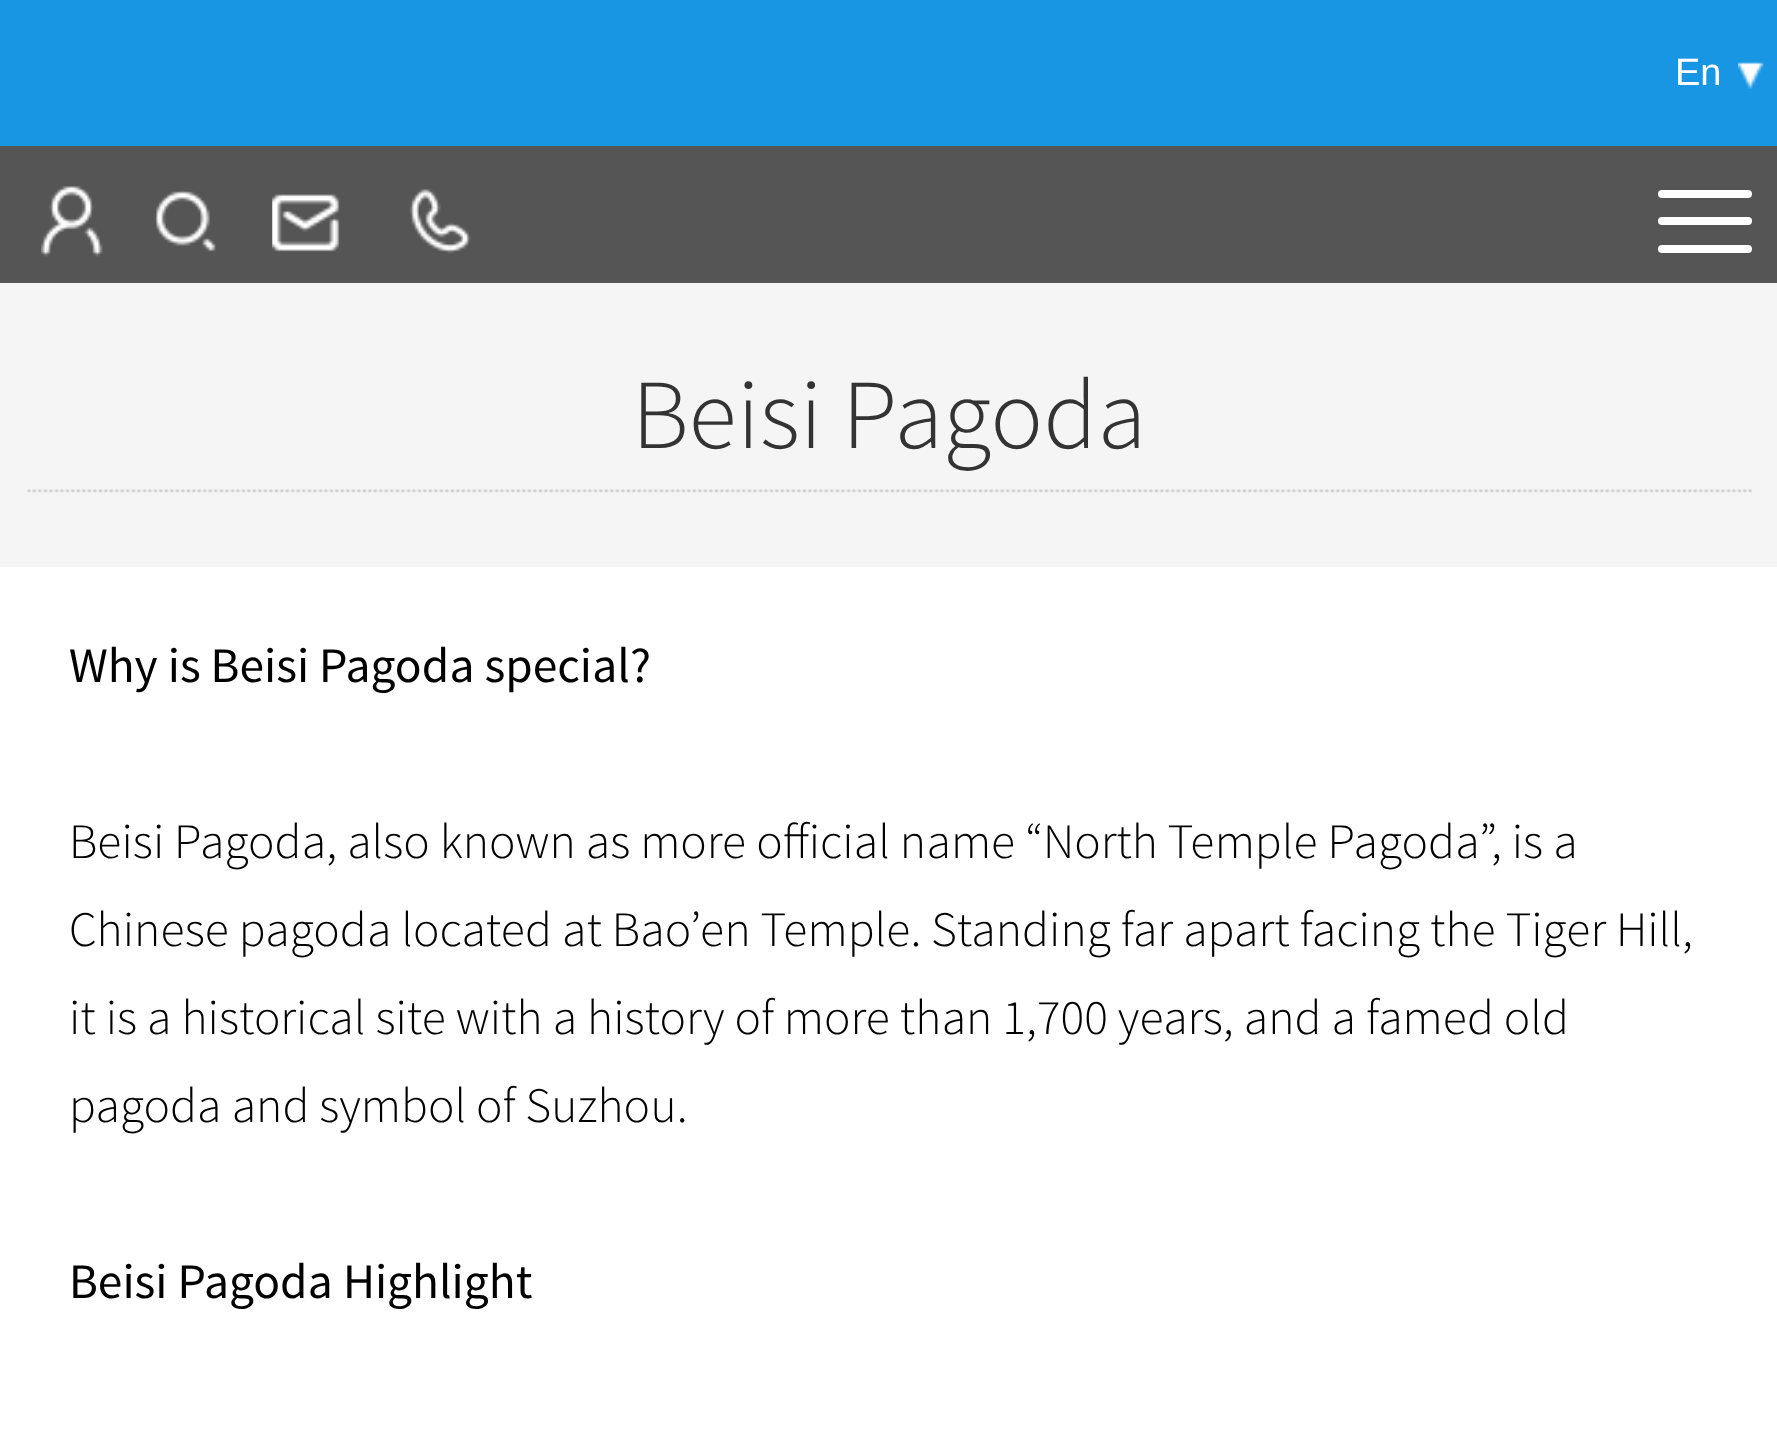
<?xml version="1.0" encoding="UTF-8"?>
<svg xmlns="http://www.w3.org/2000/svg" width="1777" height="1430">
    <rect width="100%" height="100%" fill="#F5F5F5"/>
    <rect x="0" y="0" width="1777" height="146" fill="#1896E3"/>
    <image x="1738" y="62" width="26" height="27" href="img_01.png"/>
    <text x="1675" y="85" font-family="Liberation Sans" font-size="38" fill="#FFFFFF">En</text>
    <rect x="0" y="146" width="1777" height="137" fill="#555555"/>
    <rect x="1658" y="190" width="94" height="8" rx="4" fill="#FFFFFF"/>
    <rect x="1658" y="245" width="94" height="8" rx="4" fill="#FFFFFF"/>
    <rect x="1658" y="217" width="94" height="8" rx="4" fill="#FFFFFF"/>
    <image x="41" y="186" width="62" height="71" href="img_02.png"/>
    <image x="154" y="190" width="62" height="62" href="img_03.png"/>
    <image x="272" y="194" width="68" height="58" href="img_04.png"/>
    <image x="409" y="189" width="62" height="65" href="img_05.png"/>
    <image x="27" y="489" width="1725" height="4" href="img_06.png"/>
    <text x="632" y="448" font-family="Source Sans Pro" font-size="99" font-weight="300" fill="#333333">Beisi Pagoda</text>
    <rect x="0" y="567" width="1777" height="863" fill="#FFFFFF"/>
    <text x="69" y="682" font-family="Source Sans Pro" font-size="49.5" fill="#000000">Why is Beisi Pagoda special?</text>
    <text font-family="Source Sans Pro" font-size="49.5" font-weight="300" fill="#000000">
        <tspan x="69" y="858">Beisi Pagoda, also known as more official name “North Temple Pagoda”, is a</tspan>
        <tspan x="69" y="946">Chinese pagoda located at Bao’en Temple. Standing far apart facing the Tiger Hill,</tspan>
        <tspan x="69" y="1034">it is a historical site with a history of more than 1,700 years, and a famed old</tspan>
        <tspan x="69" y="1122">pagoda and symbol of Suzhou.</tspan>
    </text>
    <text x="69" y="1298" font-family="Source Sans Pro" font-size="49.5" fill="#000000">Beisi Pagoda Highlight</text>
</svg>
